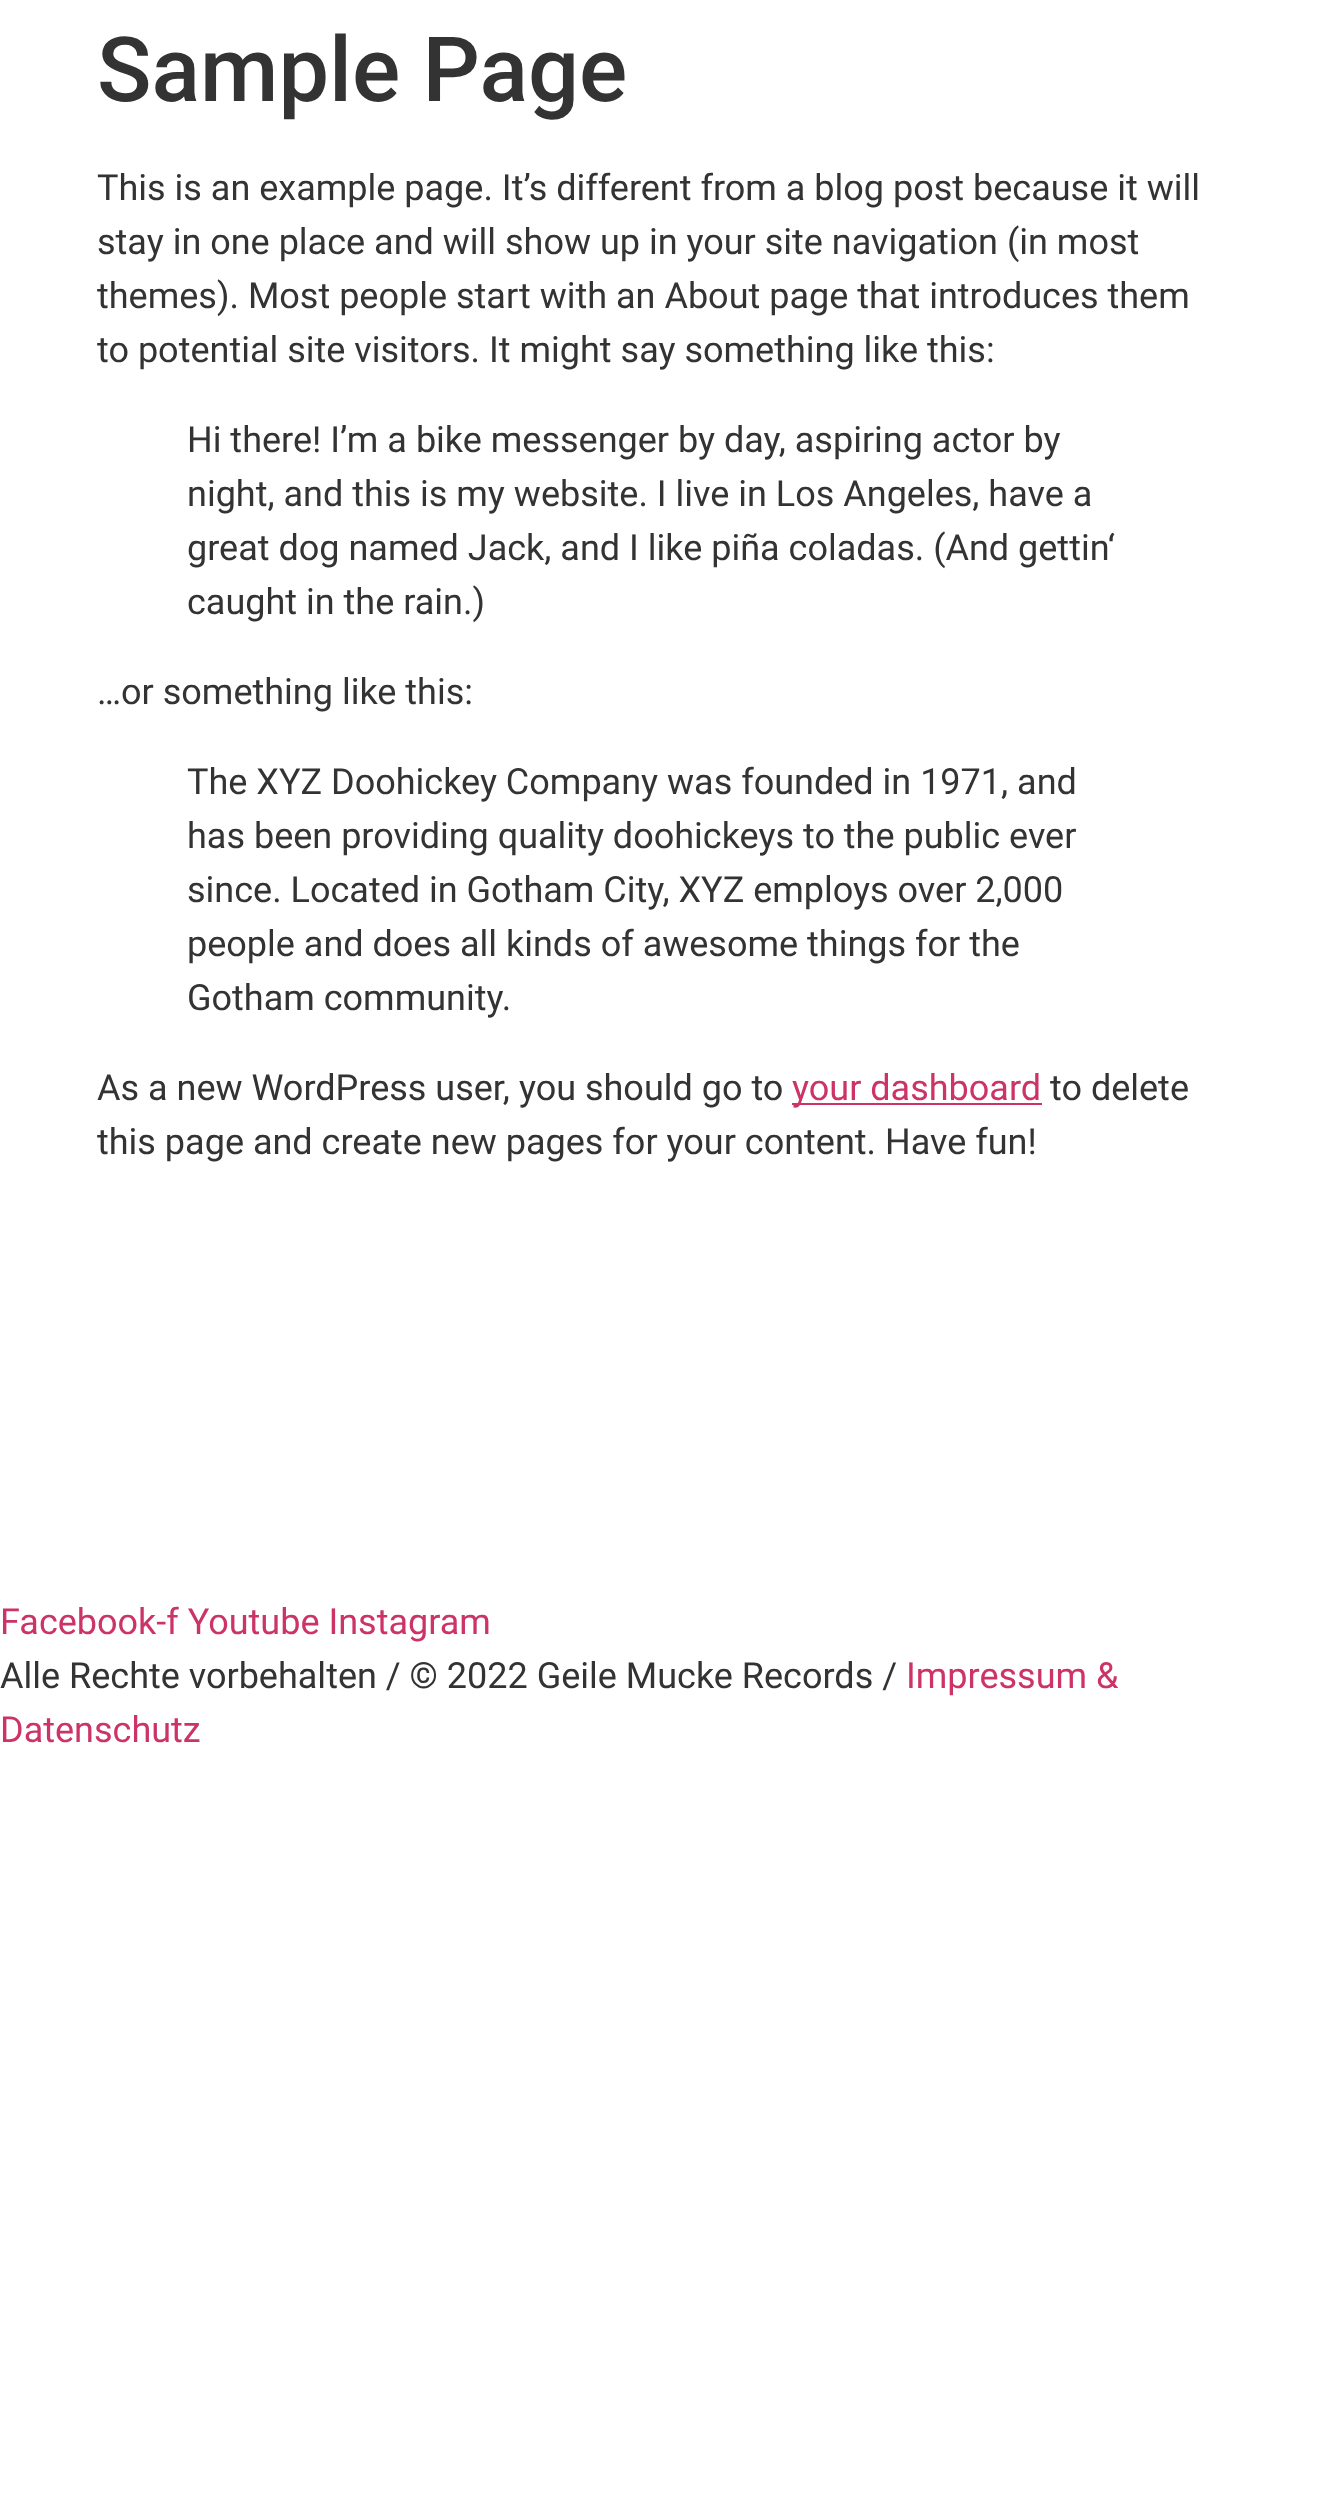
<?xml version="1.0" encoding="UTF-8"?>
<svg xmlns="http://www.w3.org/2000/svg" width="1317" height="2495">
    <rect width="100%" height="100%" fill="#FFFFFF"/>
    <text x="97" y="101" font-family="Roboto" font-size="90" font-weight="500" fill="#333333">Sample Page</text>
    <text font-family="Roboto" font-size="36" fill="#333333">
        <tspan x="97" y="200">This is an example page. It’s different from a blog post because it will</tspan>
        <tspan x="97" y="254">stay in one place and will show up in your site navigation (in most</tspan>
        <tspan x="97" y="308">themes). Most people start with an About page that introduces them</tspan>
        <tspan x="97" y="362">to potential site visitors. It might say something like this:</tspan>
    </text>
    <text font-family="Roboto" font-size="36" fill="#333333">
        <tspan x="187" y="452">Hi there! I’m a bike messenger by day, aspiring actor by</tspan>
        <tspan x="187" y="506">night, and this is my website. I live in Los Angeles, have a</tspan>
        <tspan x="187" y="560">great dog named Jack, and I like piña coladas. (And gettin‘</tspan>
        <tspan x="187" y="614">caught in the rain.)</tspan>
    </text>
    <text x="97" y="704" font-family="Roboto" font-size="36" fill="#333333">…or something like this:</text>
    <text font-family="Roboto" font-size="36" fill="#333333">
        <tspan x="187" y="794">The XYZ Doohickey Company was founded in 1971, and</tspan>
        <tspan x="187" y="848">has been providing quality doohickeys to the public ever</tspan>
        <tspan x="187" y="902">since. Located in Gotham City, XYZ employs over 2,000</tspan>
        <tspan x="187" y="956">people and does all kinds of awesome things for the</tspan>
        <tspan x="187" y="1010">Gotham community.</tspan>
    </text>
    <text x="97" y="1100" font-family="Roboto" font-size="36" fill="#333333">As a new WordPress user, you should go to</text>
    <rect x="792" y="1103" width="250" height="2" fill="#CC3366"/>
    <text x="792" y="1100" font-family="Roboto" font-size="36" fill="#CC3366">your dashboard</text>
    <text x="1050" y="1100" font-family="Roboto" font-size="36" fill="#333333">to delete</text>
    <text x="97" y="1154" font-family="Roboto" font-size="36" fill="#333333">this page and create new pages for your content. Have fun!</text>
    <text x="0" y="1634" font-family="Roboto" font-size="36" fill="#CC3366">Facebook-f Youtube Instagram</text>
    <text x="0" y="1688" font-family="Roboto" font-size="36" fill="#333333">Alle Rechte vorbehalten / © 2022 Geile Mucke Records /</text>
    <text x="906" y="1688" font-family="Roboto" font-size="36" fill="#CC3366">Impressum &amp;</text>
    <text x="0" y="1742" font-family="Roboto" font-size="36" fill="#CC3366">Datenschutz</text>
</svg>
